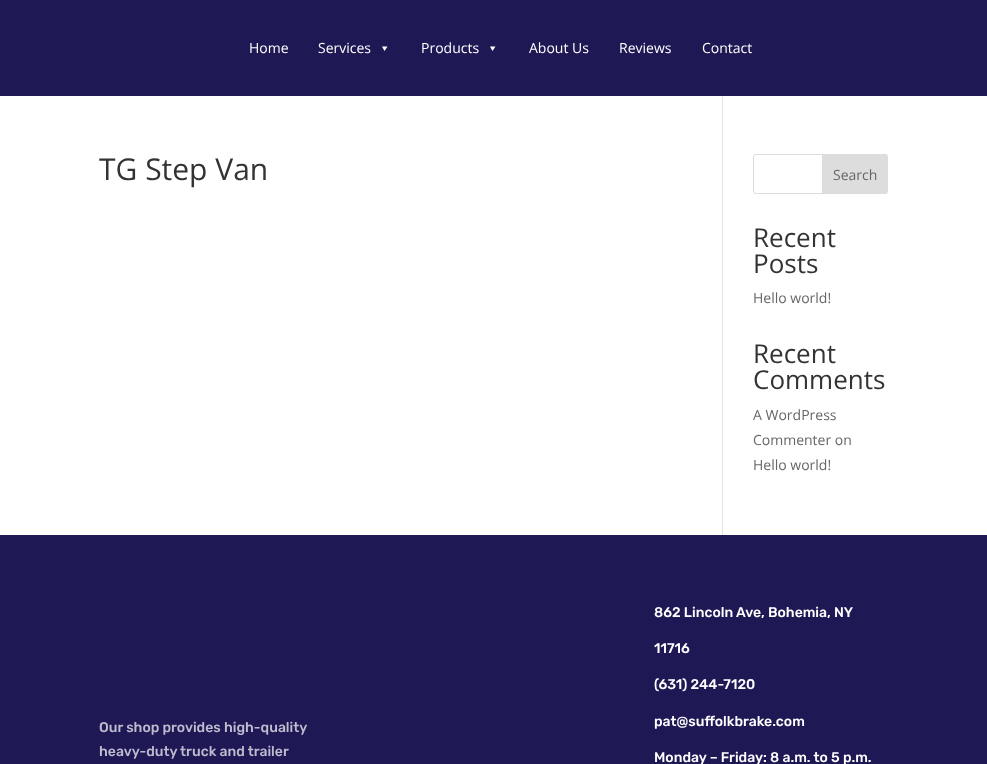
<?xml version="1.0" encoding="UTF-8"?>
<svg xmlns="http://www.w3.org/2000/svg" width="987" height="764">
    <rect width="100%" height="100%" fill="#FFFFFF"/>
    <rect x="0" y="0" width="987" height="96" fill="#1E1855"/>
    <text x="249" y="53" font-family="Open Sans" font-size="14" fill="#FFFFFF">Home</text>
    <text x="318" y="53" font-family="Open Sans" font-size="14" fill="#FFFFFF">Services</text>
    <path d="M 387.5 46.5 L 384.5 51 L 382 46.5 Z" fill="#FFFFFF"/>
    <text x="421" y="53" font-family="Open Sans" font-size="14" fill="#FFFFFF">Products</text>
    <path d="M 495.5 46.5 L 492.5 51 L 490 46.5 Z" fill="#FFFFFF"/>
    <text x="529" y="53" font-family="Open Sans" font-size="14" fill="#FFFFFF">About Us</text>
    <text x="619" y="53" font-family="Open Sans" font-size="14" fill="#FFFFFF">Reviews</text>
    <text x="702" y="53" font-family="Open Sans" font-size="14" fill="#FFFFFF">Contact</text>
    <rect x="722" y="96" width="1" height="439" fill="#E2E2E2"/>
    <text x="99" y="180" font-family="Open Sans" font-size="30" fill="#333333">TG Step Van</text>
    <rect x="753.5" y="154.5" width="134" height="39" rx="2.5" fill="none" stroke="#DDDDDD"/>
    <path d="M 822.5 154.5 H 885 C 886.5 154.5 887.5 155.5 887.5 157 V 191 C 887.5 192.5 886.5 193.5 885 193.5 H 822.5 Z" fill="#DDDDDD" stroke="#DDDDDD"/>
    <text x="833" y="180" font-family="Open Sans" font-size="14" fill="#666666">Search</text>
    <text font-family="Open Sans" font-size="26" fill="#333333">
        <tspan x="753" y="247">Recent</tspan>
        <tspan x="753" y="273">Posts</tspan>
    </text>
    <text x="753" y="303" font-family="Open Sans" font-size="14" fill="#666666">Hello world!</text>
    <text font-family="Open Sans" font-size="26" fill="#333333">
        <tspan x="753" y="363">Recent</tspan>
        <tspan x="753" y="389">Comments</tspan>
    </text>
    <text font-family="Open Sans" font-size="14" fill="#666666">
        <tspan x="753" y="420">A WordPress</tspan>
        <tspan x="753" y="445">Commenter on</tspan>
        <tspan x="753" y="470">Hello world!</tspan>
    </text>
    <rect x="0" y="535" width="987" height="229" fill="#1E1855"/>
    <text font-family="Rubik" font-size="14" font-weight="500" fill="#BEBCCE">
        <tspan x="99" y="732">Our shop provides high-quality</tspan>
        <tspan x="99" y="756">heavy-duty truck and trailer</tspan>
    </text>
    <text x="654" y="617" font-family="Rubik" font-size="14" font-weight="500" fill="#FFFFFF">862 Lincoln Ave, Bohemia, NY</text>
    <text x="654" y="653" font-family="Rubik" font-size="14" font-weight="500" fill="#FFFFFF">11716</text>
    <text x="654" y="689" font-family="Rubik" font-size="14" font-weight="500" fill="#FFFFFF">(631) 244-7120</text>
    <text x="654" y="726" font-family="Rubik" font-size="14" font-weight="500" fill="#FFFFFF">pat@suffolkbrake.com</text>
    <text x="654" y="762" font-family="Rubik" font-size="14" font-weight="500" fill="#FFFFFF">Monday – Friday: 8 a.m. to 5 p.m.</text>
</svg>
